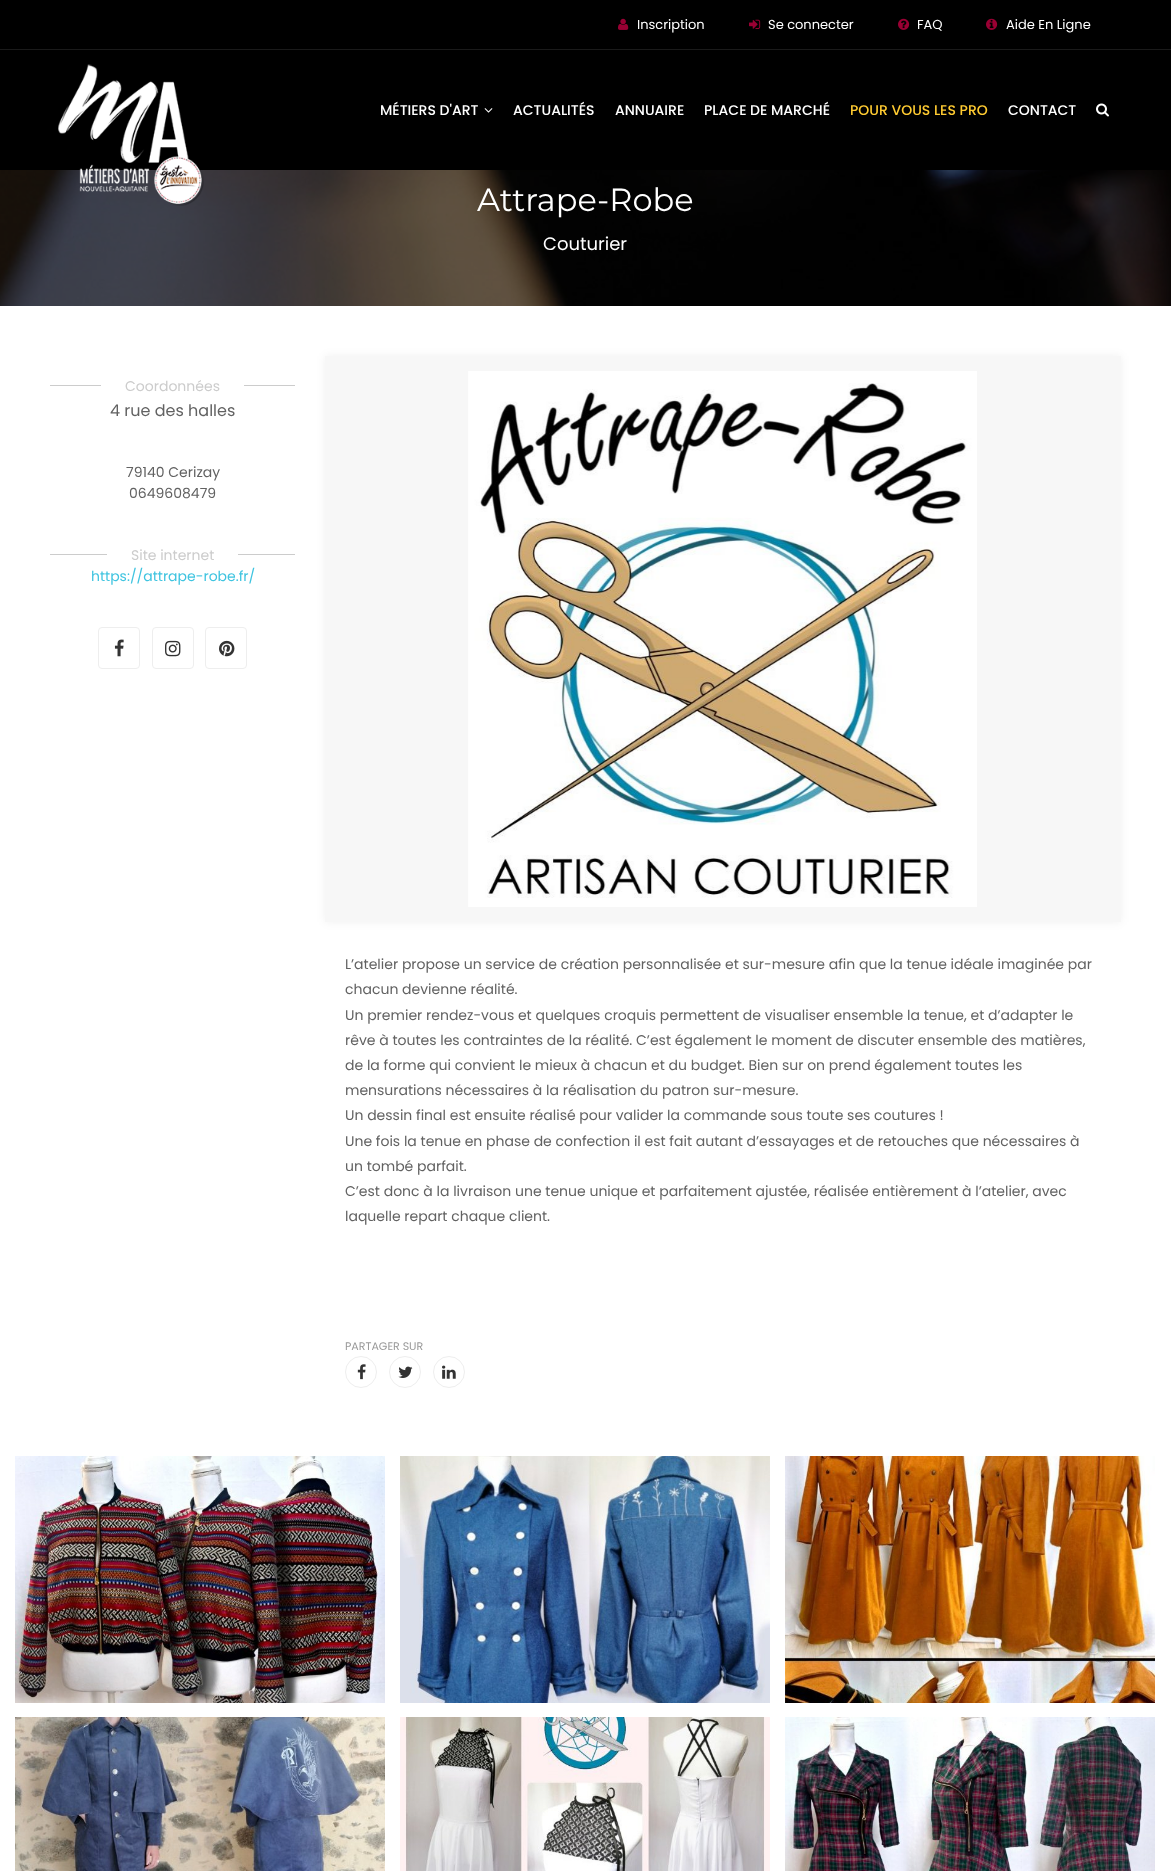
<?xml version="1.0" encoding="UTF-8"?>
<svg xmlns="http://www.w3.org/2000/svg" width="1171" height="1871">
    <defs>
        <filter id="blur1" x="-50%" y="-200%" width="200%" height="500%"><feGaussianBlur stdDeviation="5"/></filter>
    </defs>
    <rect width="100%" height="100%" fill="#FFFFFF"/>
    <rect x="0" y="0" width="1171" height="170" fill="#000000"/>
    <rect x="0" y="49" width="1171" height="1" fill="#1A1A1A"/>
    <image x="618" y="18" width="11" height="12" href="img_01.png"/>
    <text x="637" y="29" font-family="Poppins" font-size="13" fill="#FFFFFF">Inscription</text>
    <image x="749" y="19" width="12" height="10" href="img_02.png"/>
    <text x="768" y="29" font-family="Poppins" font-size="13" fill="#FFFFFF">Se connecter</text>
    <image x="898" y="18" width="12" height="12" href="img_03.png"/>
    <text x="917" y="29" font-family="Poppins" font-size="13" fill="#FFFFFF">FAQ</text>
    <image x="986" y="18" width="12" height="12" href="img_04.png"/>
    <text x="1006" y="29" font-family="Poppins" font-size="13" fill="#FFFFFF">Aide En Ligne</text>
    <image x="0" y="170" width="1171" height="136" href="img_08.png"/>
    <image x="58" y="64" width="146" height="142" href="img_05.png"/>
    <text x="380" y="115" font-family="Poppins" font-size="14" font-weight="500" fill="#FFFFFF">MÉTIERS D'ART</text>
    <image x="484" y="108" width="9" height="5" href="img_06.png"/>
    <text x="513" y="115" font-family="Poppins" font-size="14" font-weight="500" fill="#FFFFFF">ACTUALITÉS</text>
    <text x="615" y="115" font-family="Poppins" font-size="14" font-weight="500" fill="#FFFFFF">ANNUAIRE</text>
    <text x="704" y="115" font-family="Poppins" font-size="14" font-weight="500" fill="#FFFFFF">PLACE DE MARCHÉ</text>
    <text x="850" y="115" font-family="Poppins" font-size="14" font-weight="500" fill="#FFCB31">POUR VOUS LES PRO</text>
    <text x="1008" y="115" font-family="Poppins" font-size="14" font-weight="500" fill="#FFFFFF">CONTACT</text>
    <image x="1096" y="103" width="13" height="14" href="img_07.png"/>
    <text x="477" y="211" font-family="Montserrat" font-size="32" fill="#FFFFFF">Attrape-Robe</text>
    <text x="543" y="250" font-family="Poppins" font-size="18" fill="#FFFFFF">Couturier</text>
    <rect x="50" y="385" width="51" height="1" fill="#CCCCCC"/>
    <text x="125" y="391" font-family="Poppins" font-size="14" fill="#CCCCCC">Coordonnées</text>
    <rect x="244" y="385" width="51" height="1" fill="#CCCCCC"/>
    <text x="110" y="416" font-family="Poppins" font-size="16" fill="#626262">4 rue des halles</text>
    <text x="126" y="477" font-family="Poppins" font-size="14" fill="#626262">79140 Cerizay</text>
    <text x="129" y="498" font-family="Poppins" font-size="14" fill="#626262">0649608479</text>
    <rect x="50" y="554" width="57" height="1" fill="#CCCCCC"/>
    <text x="131" y="560" font-family="Poppins" font-size="14" fill="#CCCCCC">Site internet</text>
    <rect x="238" y="554" width="57" height="1" fill="#CCCCCC"/>
    <text x="91" y="581" font-family="Poppins" font-size="14" fill="#3FC4E0">https://attrape-robe.fr/</text>
    <rect x="98.5" y="627.5" width="41" height="41" rx="3.5" fill="none" stroke="#EEEEEE"/>
    <image x="114" y="639" width="10" height="18" href="img_09.png"/>
    <rect x="152.5" y="627.5" width="41" height="41" rx="3.5" fill="none" stroke="#EEEEEE"/>
    <image x="165" y="640" width="16" height="17" href="img_10.png"/>
    <rect x="205.5" y="627.5" width="41" height="41" rx="3.5" fill="none" stroke="#EEEEEE"/>
    <image x="219" y="640" width="16" height="17" href="img_11.png"/>
    <rect x="325" y="356" width="796" height="566" fill="#000000" fill-opacity="0.06" filter="url(#blur1)"/>
    <rect x="325" y="356" width="796" height="566" fill="#F7F7F7"/>
    <image x="468" y="371" width="509" height="536" href="img_12.png"/>
    <text font-family="Poppins" font-size="14" fill="#626262">
        <tspan x="345" y="969">L’atelier propose un service de création personnalisée et sur-mesure afin que la tenue idéale imaginée par</tspan>
        <tspan x="345" y="994">chacun devienne réalité.</tspan>
        <tspan x="345" y="1020">Un premier rendez-vous et quelques croquis permettent de visualiser ensemble la tenue, et d’adapter le</tspan>
        <tspan x="345" y="1045">rêve à toutes les contraintes de la réalité. C’est également le moment de discuter ensemble des matières,</tspan>
        <tspan x="345" y="1070">de la forme qui convient le mieux à chacun et du budget. Bien sur on prend également toutes les</tspan>
        <tspan x="345" y="1095">mensurations nécessaires à la réalisation du patron sur-mesure.</tspan>
        <tspan x="345" y="1120">Un dessin final est ensuite réalisé pour valider la commande sous toute ses coutures !</tspan>
        <tspan x="345" y="1146">Une fois la tenue en phase de confection il est fait autant d’essayages et de retouches que nécessaires à</tspan>
        <tspan x="345" y="1171">un tombé parfait.</tspan>
        <tspan x="345" y="1196">C’est donc à la livraison une tenue unique et parfaitement ajustée, réalisée entièrement à l’atelier, avec</tspan>
        <tspan x="345" y="1221">laquelle repart chaque client.</tspan>
    </text>
    <text x="345" y="1350" font-family="Poppins" font-size="11" fill="#999999">PARTAGER SUR</text>
    <circle cx="361" cy="1372" r="15.5" fill="none" stroke="#EEEEEE"/>
    <image x="357" y="1364" width="9" height="16" href="img_13.png"/>
    <circle cx="405" cy="1372" r="15.5" fill="none" stroke="#EEEEEE"/>
    <image x="398" y="1366" width="15" height="12" href="img_14.png"/>
    <circle cx="449" cy="1372" r="15.5" fill="none" stroke="#EEEEEE"/>
    <image x="442" y="1365" width="14" height="14" href="img_15.png"/>
    <image x="15" y="1456" width="370" height="247" href="img_16.png"/>
    <image x="400" y="1456" width="370" height="247" href="img_17.png"/>
    <image x="785" y="1456" width="370" height="247" href="img_18.png"/>
    <image x="15" y="1717" width="370" height="154" href="img_19.png"/>
    <image x="400" y="1717" width="370" height="154" href="img_20.png"/>
    <image x="785" y="1717" width="370" height="154" href="img_21.png"/>
</svg>
